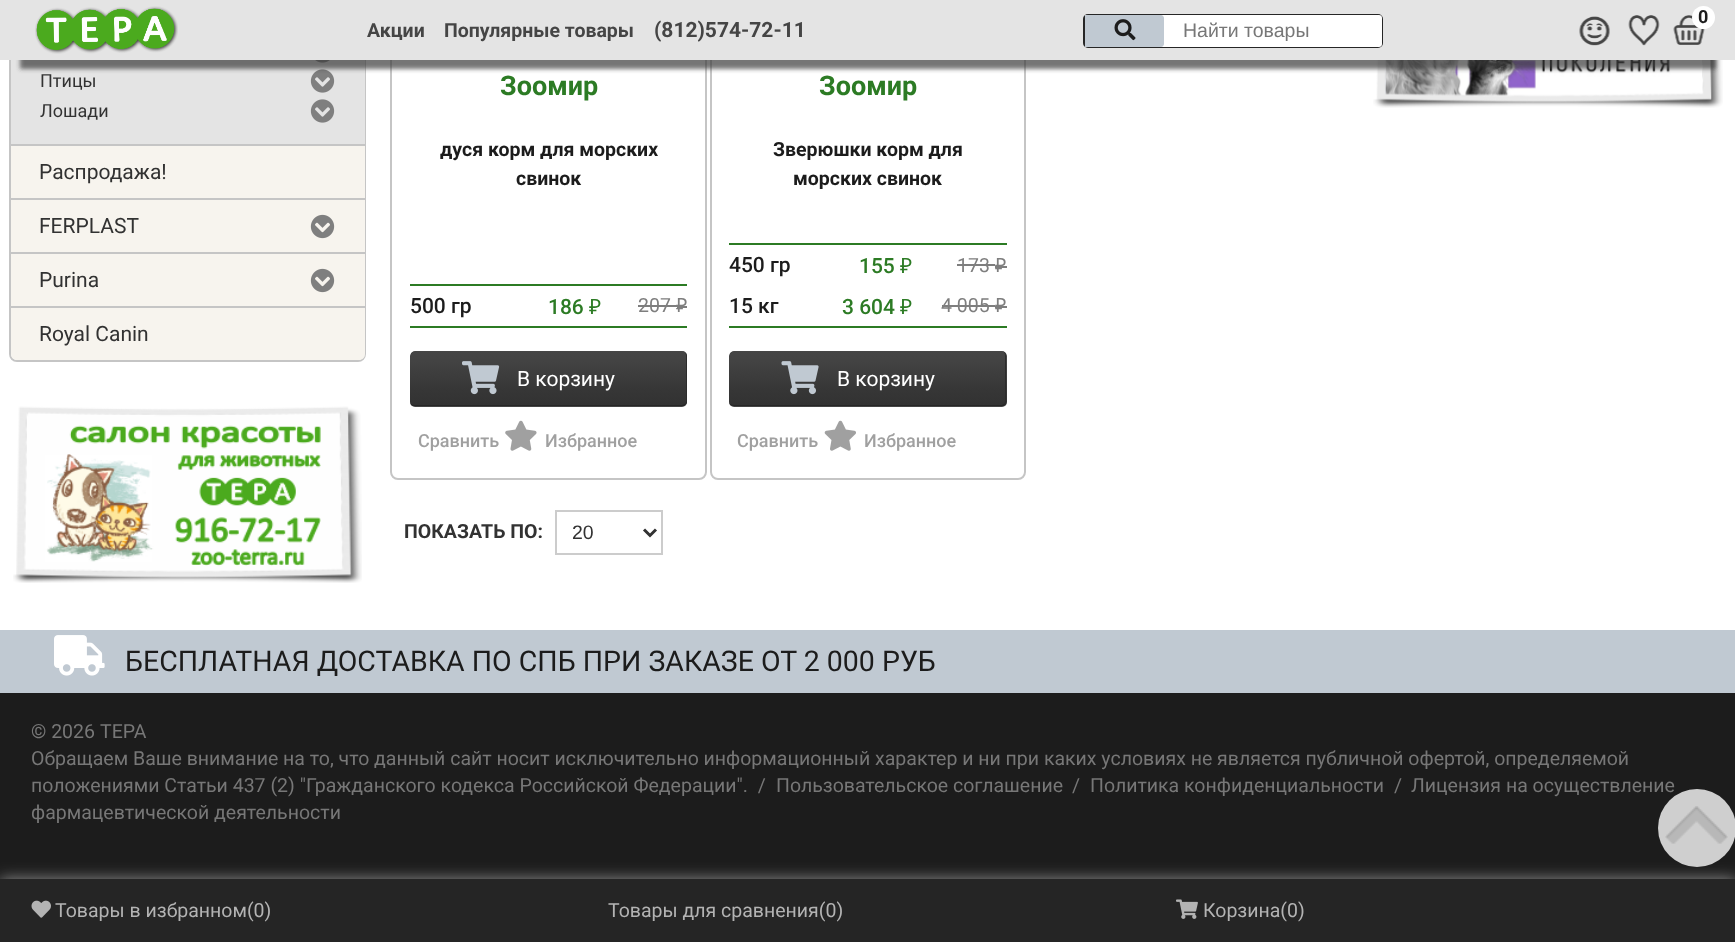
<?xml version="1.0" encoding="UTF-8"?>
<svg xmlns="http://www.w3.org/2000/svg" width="1735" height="942">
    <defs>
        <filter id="blur1" x="-50%" y="-200%" width="200%" height="500%"><feGaussianBlur stdDeviation="2"/></filter>
        <clipPath id="clip1"><rect x="410" y="351" width="277" height="56" rx="5"/></clipPath>
        <linearGradient id="g1" gradientUnits="userSpaceOnUse" x1="548" y1="351" x2="548" y2="405"><stop offset="0" stop-color="#454545"/><stop offset="0.18" stop-color="#434343"/><stop offset="0.73" stop-color="#363636"/><stop offset="1" stop-color="#323232"/></linearGradient>
        <linearGradient id="g2" gradientUnits="userSpaceOnUse" x1="548" y1="405" x2="548" y2="459"><stop offset="0" stop-color="#454545"/><stop offset="0.18" stop-color="#434343"/><stop offset="0.73" stop-color="#363636"/><stop offset="1" stop-color="#323232"/></linearGradient>
        <clipPath id="clip2"><rect x="729" y="351" width="278" height="56" rx="5"/></clipPath>
        <linearGradient id="g3" gradientUnits="userSpaceOnUse" x1="867" y1="351" x2="867" y2="405"><stop offset="0" stop-color="#454545"/><stop offset="0.18" stop-color="#434343"/><stop offset="0.73" stop-color="#363636"/><stop offset="1" stop-color="#323232"/></linearGradient>
        <linearGradient id="g4" gradientUnits="userSpaceOnUse" x1="867" y1="405" x2="867" y2="459"><stop offset="0" stop-color="#454545"/><stop offset="0.18" stop-color="#434343"/><stop offset="0.73" stop-color="#363636"/><stop offset="1" stop-color="#323232"/></linearGradient>
        <filter id="blur2" x="-50%" y="-200%" width="200%" height="500%"><feGaussianBlur stdDeviation="7.5"/></filter>
    </defs>
    <rect width="100%" height="100%" fill="#FFFFFF"/>
    <path d="M 10 -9 H 365 V 354 C 365 358 362 361 358 361 H 17 C 13 361 10 358 10 354 Z" fill="none" stroke="#C5C5C5" stroke-width="2"/>
    <rect x="11" y="60" width="354" height="84" fill="#E4E4E4"/>
    <image x="315" y="60" width="15" height="3" href="img_06.png"/>
    <image x="310" y="69" width="25" height="24" href="img_07.png"/>
    <rect x="391" y="-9" width="315" height="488" rx="7" fill="none" stroke="#C5C5C5" stroke-width="2"/>
    <rect x="711" y="-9" width="314" height="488" rx="7" fill="none" stroke="#C5C5C5" stroke-width="2"/>
    <image x="1373" y="60" width="350" height="48" href="img_14.png"/>
    <rect x="20" y="48" width="1696" height="21" fill="#383838" fill-opacity="0.69" filter="url(#blur1)"/>
    <rect x="0" y="0" width="1735" height="60" fill="#E4E4E4"/>
    <image x="35" y="6" width="143" height="48" href="img_01.png"/>
    <image x="1579" y="16" width="31" height="30" href="img_02.png"/>
    <image x="1628" y="15" width="32" height="31" href="img_03.png"/>
    <image x="1673" y="15" width="32" height="30" href="img_04.png"/>
    <circle cx="1703.5" cy="17.5" r="11.5" fill="#FFFFFF"/>
    <text x="1698" y="23" font-family="Roboto" font-size="18" font-weight="700" fill="#1C1C1C">0</text>
    <text x="367" y="37" font-family="Roboto" font-size="19.5" font-weight="700" fill="#454545">Акции</text>
    <text x="444" y="37" font-family="Roboto" font-size="19.5" font-weight="700" fill="#454545">Популярные товары</text>
    <text x="654" y="37" font-family="Roboto" font-size="21" font-weight="700" fill="#454545">(812)574-72-11</text>
    <rect x="1084" y="15" width="298" height="32" rx="4" fill="none" stroke="#262626" stroke-width="2"/>
    <rect x="1085" y="15" width="297" height="32" rx="3" fill="#FFFFFF"/>
    <path d="M 1085 15 H 1161 C 1162.5 15 1164 16.5 1164 18 V 44 C 1164 45.5 1162.5 47 1161 47 H 1085 Z" fill="#C0C9D2"/>
    <image x="1114" y="19" width="22" height="22" href="img_05.png"/>
    <text x="1183" y="37" font-family="Liberation Sans" font-size="19.5" fill="#777777">Найти товары</text>
    <text font-family="Roboto" font-size="18" fill="#323232">
        <tspan x="40" y="87">Птицы</tspan>
        <tspan x="40" y="117">Лошади</tspan>
    </text>
    <image x="310" y="99" width="25" height="24" href="img_07.png"/>
    <rect x="11" y="146" width="354" height="52" fill="#F7F4EE"/>
    <rect x="11" y="144" width="354" height="2" fill="#C5C5C5"/>
    <text x="39" y="179" font-family="Roboto" font-size="21" fill="#323232">Распродажа!</text>
    <rect x="11" y="200" width="354" height="52" fill="#F7F4EE"/>
    <rect x="11" y="198" width="354" height="2" fill="#C5C5C5"/>
    <text x="39" y="233" font-family="Roboto" font-size="21" fill="#323232">FERPLAST</text>
    <image x="310" y="214" width="25" height="25" href="img_08.png"/>
    <rect x="11" y="254" width="354" height="52" fill="#F7F4EE"/>
    <rect x="11" y="252" width="354" height="2" fill="#C5C5C5"/>
    <text x="39" y="287" font-family="Roboto" font-size="21" fill="#323232">Purina</text>
    <image x="310" y="268" width="25" height="25" href="img_08.png"/>
    <path d="M 11 306 H 365 V 354 C 365 357.5 362.5 360 359 360 H 17 C 13.5 360 11 357.5 11 354 Z" fill="#F7F4EE"/>
    <rect x="11" y="306" width="354" height="2" fill="#C5C5C5"/>
    <text x="39" y="341" font-family="Roboto" font-size="21" fill="#323232">Royal Canin</text>
    <image x="13" y="406" width="349" height="177" href="img_09.png"/>
    <text x="500" y="95" font-family="Roboto" font-size="27" font-weight="700" fill="#2C7B24">Зоомир</text>
    <text x="440" y="156" font-family="Roboto" font-size="19.5" font-weight="700" fill="#1C1C1C">дуся корм для морских</text>
    <text x="516" y="185" font-family="Roboto" font-size="19.5" font-weight="700" fill="#1C1C1C">свинок</text>
    <rect x="410" y="284" width="277" height="2" fill="#2C7B24"/>
    <rect x="410" y="326" width="277" height="2" fill="#2C7B24"/>
    <text x="410" y="313" font-family="Roboto" font-size="21" font-weight="500" fill="#1C1C1C">500 гр</text>
    <text x="548" y="314" font-family="Roboto" font-size="21" font-weight="500" fill="#2C7B24">186</text>
    <text x="589" y="314" font-family="Noto Sans" font-size="21" fill="#2C7B24">₽</text>
    <text x="638" y="312" font-family="Roboto" font-size="19.5" fill="#7E7E7E">207</text>
    <rect x="638" y="305" width="39" height="2" fill="#7E7E7E"/>
    <text x="676" y="312" font-family="Noto Sans" font-size="19.5" fill="#7E7E7E">₽</text>
    <rect x="677" y="306" width="10" height="2" fill="#7E7E7E"/>
    <g clip-path="url(#clip1)">
        <path d="M 415 351 H 682 C 685 351 687 353 687 356 V 405 H 410 V 356 C 410 353 412 351 415 351 Z" fill="url(#g1)"/>
        <rect x="410" y="405" width="277" height="2" fill="url(#g2)"/>
    </g>
    <path d="M 687 356 C 687 353 685 351 682 351 L 685 352 L 686 355 V 402 L 685 404 V 405 L 687 403 Z" fill="#2C2C2C"/>
    <path d="M 685 405 V 404 L 682 405 H 414 C 412 405 410 404 410 402 C 410 404 412 406 414 406 H 682 C 683 406 685 406 685 405 Z" fill="#262626"/>
    <image x="462" y="361" width="38" height="34" href="img_10.png"/>
    <text x="517" y="386" font-family="Roboto" font-size="21" fill="#FFFFFF">В корзину</text>
    <text x="418" y="447" font-family="Roboto" font-size="18" font-weight="500" fill="#A0A0A0">Сравнить</text>
    <image x="505" y="420" width="32" height="31" href="img_11.png"/>
    <text x="545" y="447" font-family="Roboto" font-size="18" font-weight="500" fill="#A0A0A0">Избранное</text>
    <text x="819" y="95" font-family="Roboto" font-size="27" font-weight="700" fill="#2C7B24">Зоомир</text>
    <text x="773" y="156" font-family="Roboto" font-size="19.5" font-weight="700" fill="#1C1C1C">Зверюшки корм для</text>
    <text x="793" y="185" font-family="Roboto" font-size="19.5" font-weight="700" fill="#1C1C1C">морских свинок</text>
    <rect x="729" y="243" width="278" height="2" fill="#2C7B24"/>
    <rect x="729" y="326" width="278" height="2" fill="#2C7B24"/>
    <text x="729" y="272" font-family="Roboto" font-size="21" font-weight="500" fill="#1C1C1C">450 гр</text>
    <text x="859" y="273" font-family="Roboto" font-size="21" font-weight="500" fill="#2C7B24">155</text>
    <text x="900" y="273" font-family="Noto Sans" font-size="21" fill="#2C7B24">₽</text>
    <text x="957" y="272" font-family="Roboto" font-size="19.5" fill="#7E7E7E">173</text>
    <rect x="957" y="264" width="38" height="2" fill="#7E7E7E"/>
    <text x="995" y="272" font-family="Noto Sans" font-size="19.5" fill="#7E7E7E">₽</text>
    <rect x="995" y="266" width="12" height="2" fill="#7E7E7E"/>
    <text x="729" y="313" font-family="Roboto" font-size="21" font-weight="500" fill="#1C1C1C">15 кг</text>
    <text x="842" y="314" font-family="Roboto" font-size="21" font-weight="500" fill="#2C7B24">3 604</text>
    <text x="900" y="314" font-family="Noto Sans" font-size="21" fill="#2C7B24">₽</text>
    <text x="941" y="312" font-family="Roboto" font-size="19.5" fill="#7E7E7E">4 005</text>
    <rect x="942" y="305" width="53" height="2" fill="#7E7E7E"/>
    <text x="995" y="312" font-family="Noto Sans" font-size="19.5" fill="#7E7E7E">₽</text>
    <rect x="995" y="306" width="12" height="2" fill="#7E7E7E"/>
    <g clip-path="url(#clip2)">
        <path d="M 734 351 H 1002 C 1005 351 1007 353 1007 356 V 405 H 729 V 356 C 729 353 731 351 734 351 Z" fill="url(#g3)"/>
        <rect x="729" y="405" width="278" height="2" fill="url(#g4)"/>
    </g>
    <path d="M 1006 356 C 1006 353 1004 351 1002 351 C 1004 351 1005 353 1005 356 V 402 L 1004 404 L 1005 405 C 1006 404 1006 403 1006 402 Z" fill="#2C2C2C"/>
    <path d="M 1005 405 C 1004 406 1003 406 1002 406 H 734 C 731 406 729 404 729 402 C 729 404 731 405 734 405 H 1002 L 1004 404 Z" fill="#262626"/>
    <image x="781" y="361" width="38" height="34" href="img_12.png"/>
    <text x="837" y="386" font-family="Roboto" font-size="21" fill="#FFFFFF">В корзину</text>
    <text x="737" y="447" font-family="Roboto" font-size="18" font-weight="500" fill="#A0A0A0">Сравнить</text>
    <image x="824" y="420" width="32" height="31" href="img_13.png"/>
    <text x="864" y="447" font-family="Roboto" font-size="18" font-weight="500" fill="#A0A0A0">Избранное</text>
    <text x="404" y="538" font-family="Roboto" font-size="19.5" font-weight="700" fill="#323232">ПОКАЗАТЬ ПО:</text>
    <rect x="556" y="511" width="106" height="43" fill="none" stroke="#CCCCCC" stroke-width="2"/>
    <path d="M 644 529.5 L 650 535.5 L 656 529.5" fill="none" stroke="#323232" stroke-width="3"/>
    <text x="572" y="539" font-family="Liberation Sans" font-size="19.5" fill="#323232">20</text>
    <rect x="0" y="630" width="1735" height="63" fill="#C0C9D2"/>
    <image x="54" y="635" width="51" height="41" href="img_15.png"/>
    <text x="125" y="671" font-family="Roboto" font-size="28.5" fill="#1C1C1C">БЕСПЛАТНАЯ ДОСТАВКА ПО СПБ ПРИ ЗАКАЗЕ ОТ 2 000 РУБ</text>
    <rect x="0" y="693" width="1735" height="186" fill="#1C1C1C"/>
    <text x="1411" y="792" font-family="Roboto" font-size="19.5" fill="#777777">Лицензия на осуществление</text>
    <rect x="0" y="879" width="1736" height="63" fill="#FFFFFF" fill-opacity="0.5" filter="url(#blur2)"/>
    <circle cx="1697" cy="828" r="39" fill="#FFFFFF" fill-opacity="0.79"/>
    <image x="1665" y="806" width="63" height="38" href="img_16.png"/>
    <text x="31" y="738" font-family="Roboto" font-size="19.5" fill="#777777">© 2026</text>
    <text x="100" y="738" font-family="Roboto" font-size="19.5" fill="#777777">ТЕРА</text>
    <text font-family="Roboto" font-size="19.5" fill="#777777" xml:space="preserve"><tspan x="31" y="765">Обращаем Ваше внимание на то, что данный сайт носит исключительно информационный характер и ни при каких условиях не является публичной офертой, определяемой</tspan><tspan x="31" y="792">положениями Статьи 437 (2) "Гражданского кодекса Российской Федерации".  /</tspan></text>
    <text x="776" y="792" font-family="Roboto" font-size="19.5" fill="#777777">Пользовательское соглашение</text>
    <text x="1072" y="792" font-family="Roboto" font-size="19.5" fill="#777777">/</text>
    <text x="1090" y="792" font-family="Roboto" font-size="19.5" fill="#777777">Политика конфиденциальности</text>
    <text x="1394" y="792" font-family="Roboto" font-size="19.5" fill="#777777">/</text>
    <text x="31" y="819" font-family="Roboto" font-size="19.5" fill="#777777">фармацевтической деятельности</text>
    <rect x="0" y="879" width="1735" height="63" fill="#252525"/>
    <image x="31" y="900" width="20" height="18" href="img_17.png"/>
    <text x="55" y="917" font-family="Roboto" font-size="19.5" fill="#B3B3B3">Товары в избранном(0)</text>
    <text x="608" y="917" font-family="Roboto" font-size="19.5" fill="#B3B3B3">Товары для сравнения(0)</text>
    <image x="1176" y="899" width="22" height="20" href="img_18.png"/>
    <text x="1203" y="917" font-family="Roboto" font-size="19.5" fill="#B3B3B3">Корзина(0)</text>
</svg>
